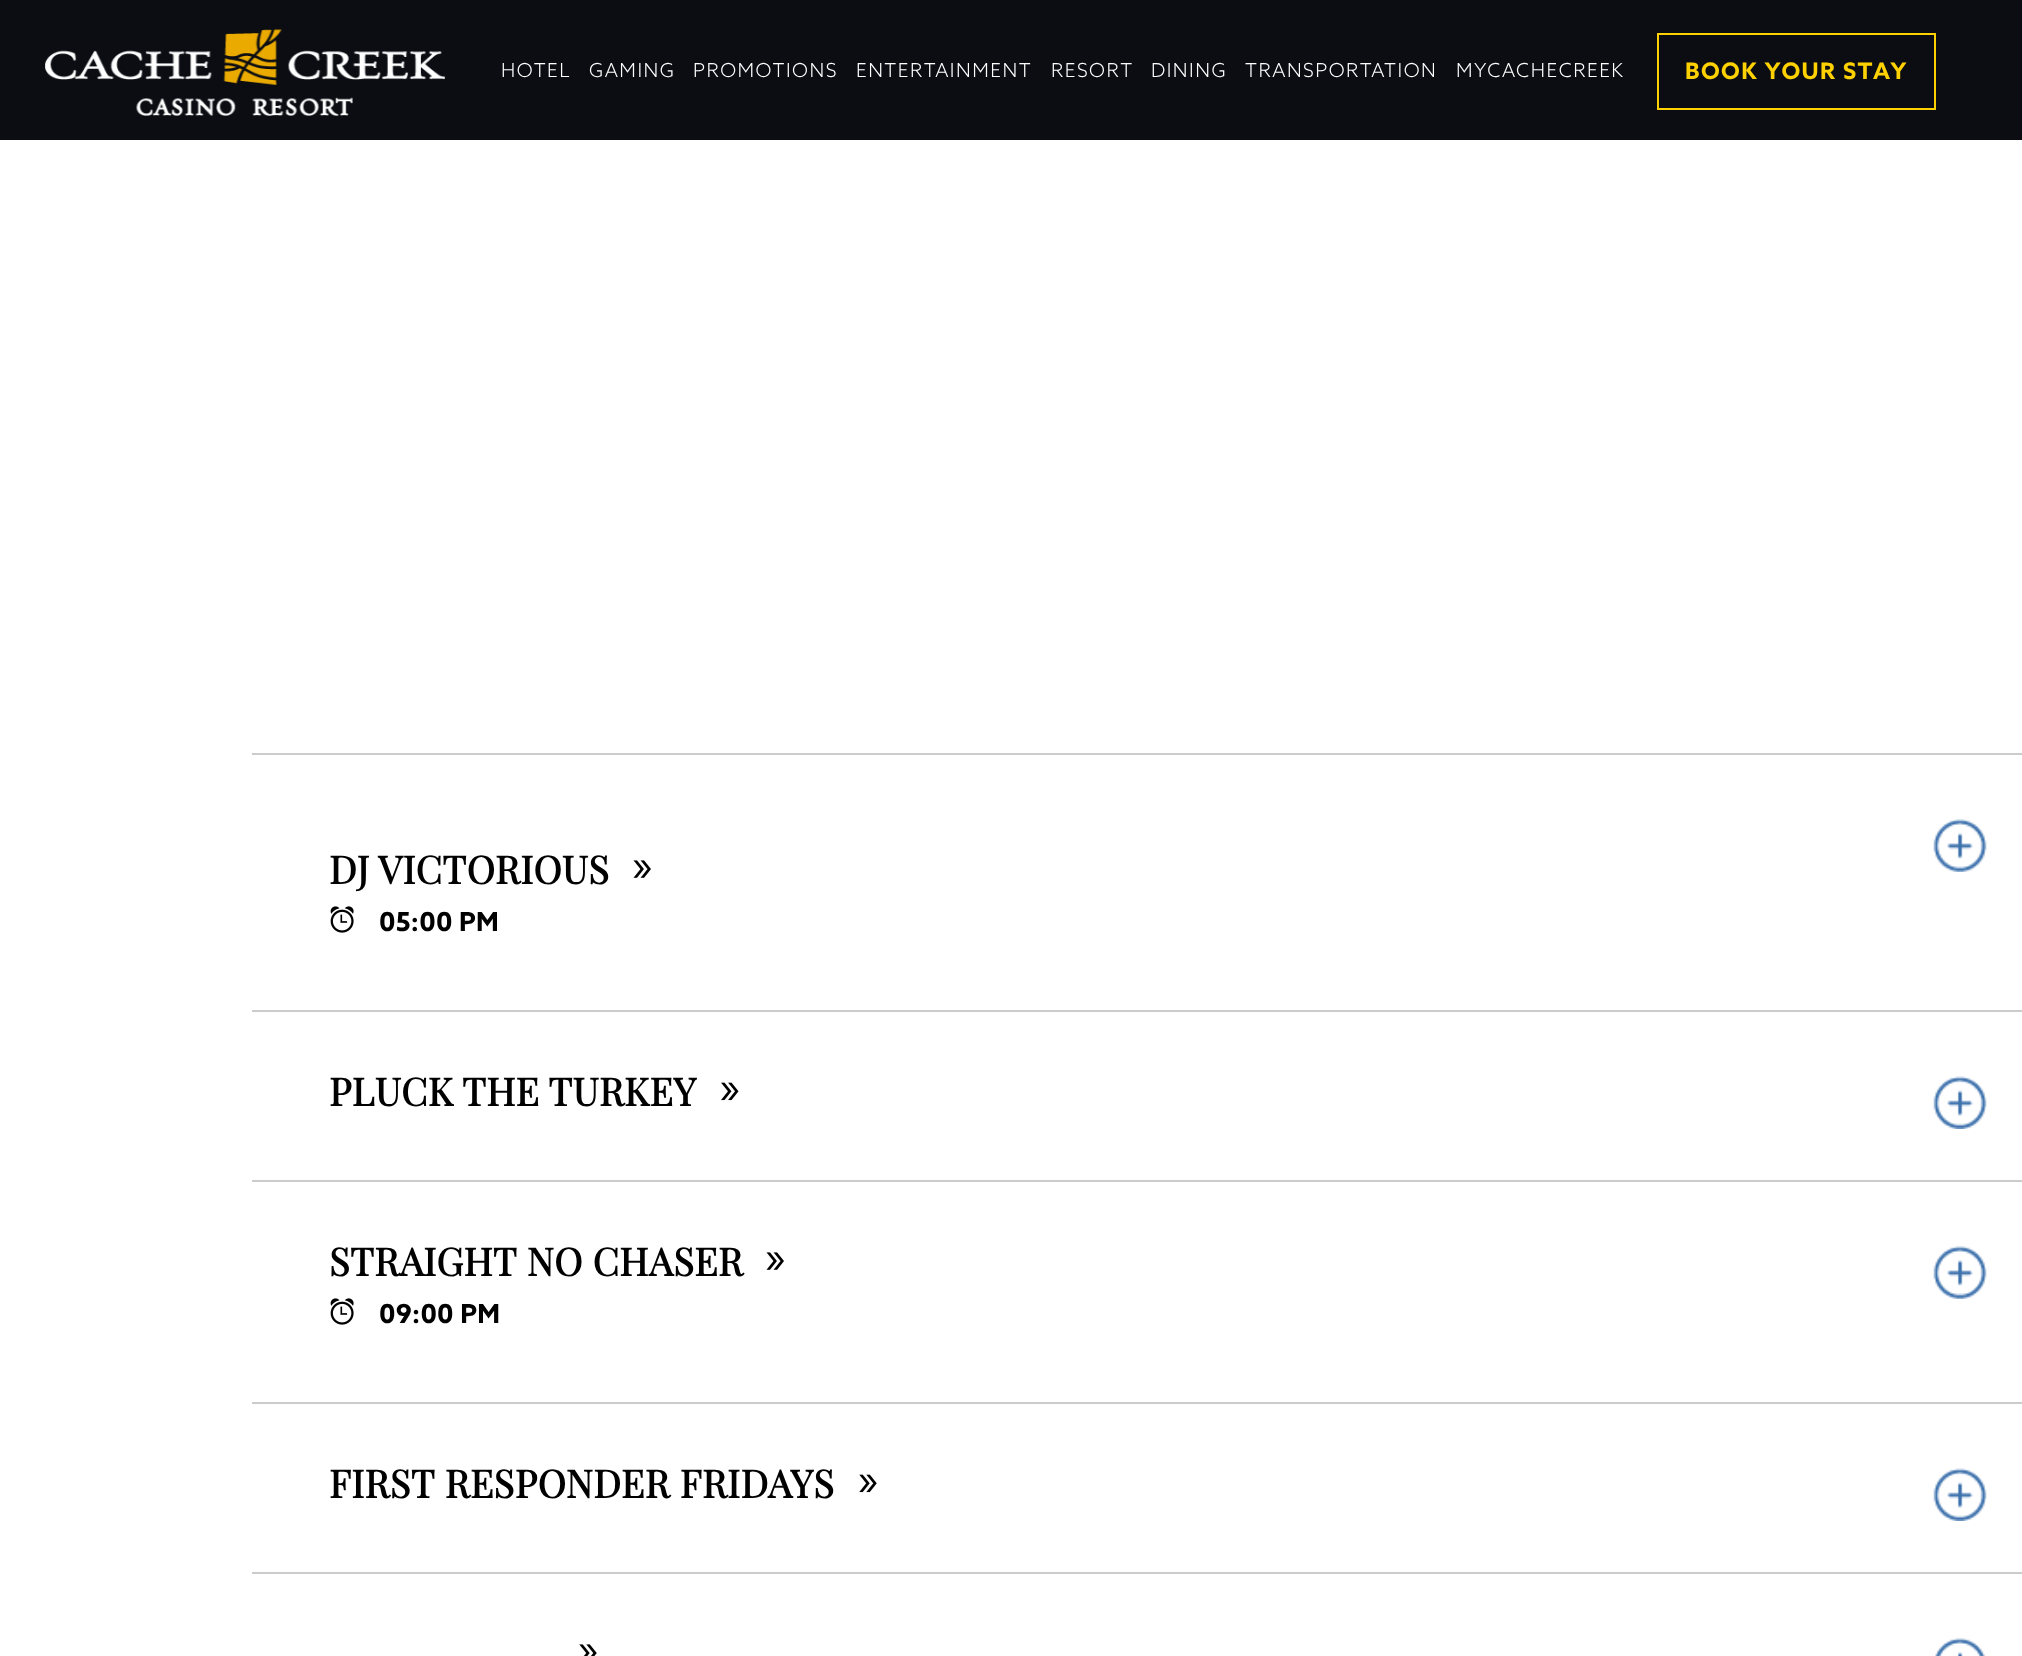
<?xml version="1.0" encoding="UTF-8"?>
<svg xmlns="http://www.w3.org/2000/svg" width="2022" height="1656">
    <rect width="100%" height="100%" fill="#FFFFFF"/>
    <rect x="0" y="0" width="2022" height="140" fill="#0B0D13"/>
    <image x="45" y="29" width="400" height="87" href="img_01.png"/>
    <text x="501" y="77" font-family="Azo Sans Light" font-size="19.25" font-weight="300" letter-spacing="1.5" fill="#FFFFFF">HOTEL</text>
    <text x="589" y="77" font-family="Azo Sans Light" font-size="19.25" font-weight="300" letter-spacing="1.5" fill="#FFFFFF">GAMING</text>
    <text x="693" y="77" font-family="Azo Sans Light" font-size="19.25" font-weight="300" letter-spacing="1.5" fill="#FFFFFF">PROMOTIONS</text>
    <text x="856" y="77" font-family="Azo Sans Light" font-size="19.25" font-weight="300" letter-spacing="1.5" fill="#FFFFFF">ENTERTAINMENT</text>
    <text x="1051" y="77" font-family="Azo Sans Light" font-size="19.25" font-weight="300" letter-spacing="1.5" fill="#FFFFFF">RESORT</text>
    <text x="1151" y="77" font-family="Azo Sans Light" font-size="19.25" font-weight="300" letter-spacing="1.5" fill="#FFFFFF">DINING</text>
    <text x="1245" y="77" font-family="Azo Sans Light" font-size="19.25" font-weight="300" letter-spacing="1.5" fill="#FFFFFF">TRANSPORTATION</text>
    <text x="1456" y="77" font-family="Azo Sans Light" font-size="19.25" font-weight="300" letter-spacing="1.5" fill="#FFFFFF">MYCACHECREEK</text>
    <rect x="1658" y="34" width="277" height="75" fill="none" stroke="#FFD100" stroke-width="2"/>
    <text x="1685" y="79" font-family="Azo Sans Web" font-size="22.75" font-weight="700" letter-spacing="1.4" fill="#FFD100">BOOK YOUR STAY</text>
    <image x="1933" y="819" width="54" height="53" href="img_02.png"/>
    <rect x="252" y="753" width="1770" height="2" fill="#CCCCCC"/>
    <text x="329" y="884" font-family="Playfair Display" font-size="38.5" font-weight="700" letter-spacing="0.25" fill="#000000">DJ VICTORIOUS</text>
    <image x="633" y="860" width="18" height="18" href="img_03.png"/>
    <image x="330" y="906" width="24" height="27" href="img_04.png"/>
    <text x="379" y="931" font-family="Azo Sans Web" font-size="26.25" font-weight="700" letter-spacing="0.25" fill="#000000">05:00 PM</text>
    <image x="1933" y="1076" width="54" height="53" href="img_05.png"/>
    <rect x="252" y="1010" width="1770" height="2" fill="#CCCCCC"/>
    <text x="329" y="1106" font-family="Playfair Display" font-size="38.5" font-weight="700" letter-spacing="0.25" fill="#000000">PLUCK THE TURKEY</text>
    <image x="721" y="1082" width="18" height="19" href="img_06.png"/>
    <image x="1933" y="1246" width="54" height="53" href="img_02.png"/>
    <rect x="252" y="1180" width="1770" height="2" fill="#CCCCCC"/>
    <text x="329" y="1276" font-family="Playfair Display" font-size="38.5" font-weight="700" letter-spacing="0.25" fill="#000000">STRAIGHT NO CHASER</text>
    <image x="766" y="1252" width="18" height="18" href="img_03.png"/>
    <image x="330" y="1298" width="24" height="27" href="img_04.png"/>
    <text x="379" y="1323" font-family="Azo Sans Web" font-size="26.25" font-weight="700" letter-spacing="0.25" fill="#000000">09:00 PM</text>
    <image x="1933" y="1468" width="54" height="53" href="img_05.png"/>
    <rect x="252" y="1402" width="1770" height="2" fill="#CCCCCC"/>
    <text x="329" y="1498" font-family="Playfair Display" font-size="38.5" font-weight="700" letter-spacing="0.25" fill="#000000">FIRST RESPONDER FRIDAYS</text>
    <image x="859" y="1474" width="18" height="19" href="img_07.png"/>
    <image x="1935" y="1638" width="50" height="18" href="img_08.png"/>
    <rect x="252" y="1572" width="1770" height="2" fill="#CCCCCC"/>
    <image x="579" y="1644" width="18" height="12" href="img_09.png"/>
</svg>
